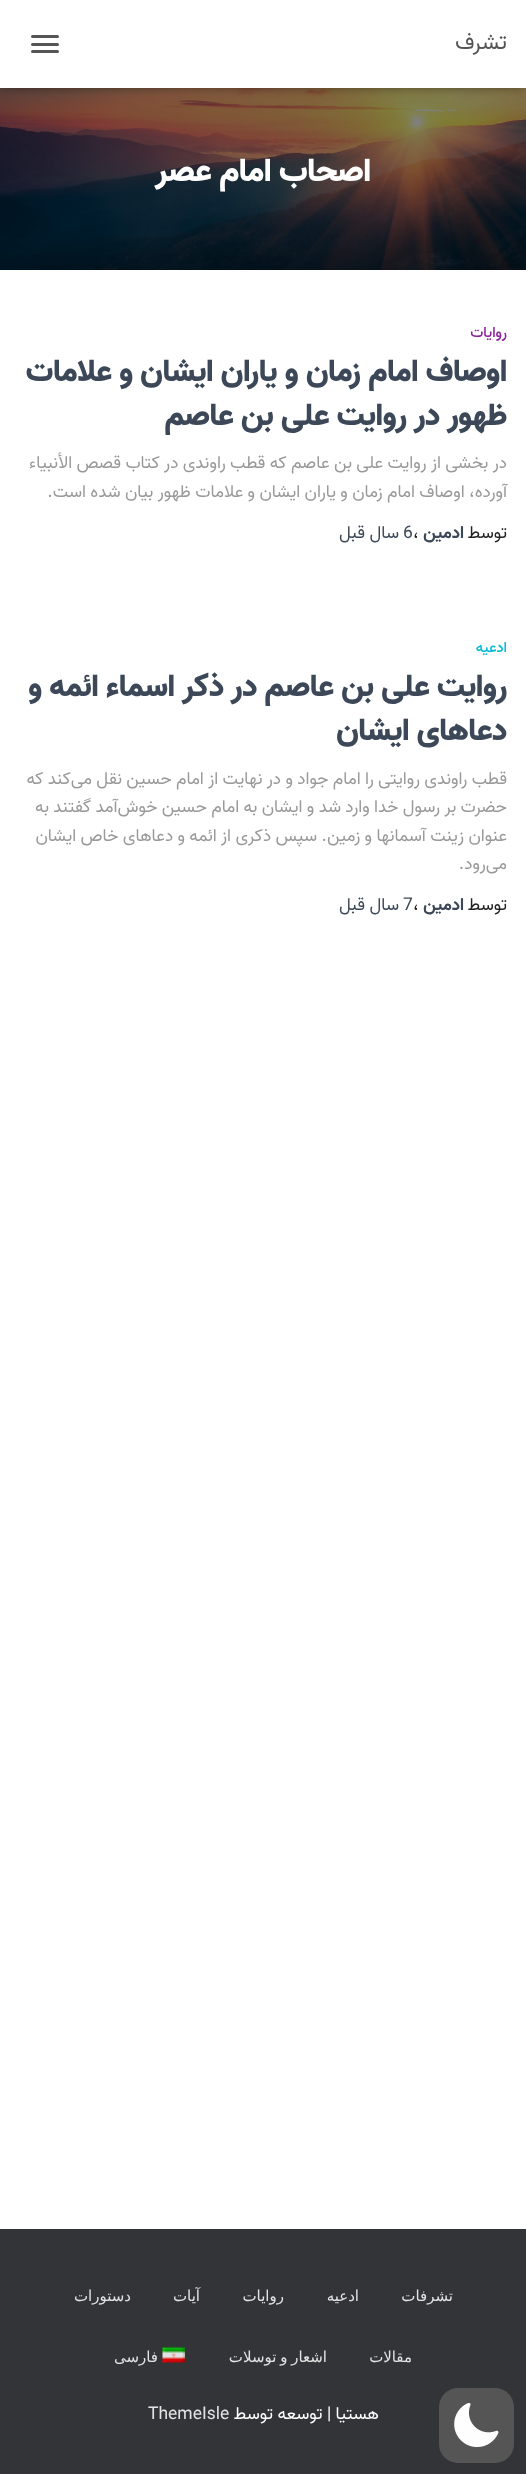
<?xml version="1.0" encoding="UTF-8"?>
<svg xmlns="http://www.w3.org/2000/svg" width="526" height="2474">
    <defs>
        <filter id="blur1" x="-50%" y="-200%" width="200%" height="500%"><feGaussianBlur stdDeviation="3"/></filter>
        <filter id="blur2" x="-50%" y="-200%" width="200%" height="500%"><feGaussianBlur stdDeviation="6"/></filter>
        <filter id="blur3" x="-50%" y="-200%" width="200%" height="500%"><feGaussianBlur stdDeviation="19"/></filter>
    </defs>
    <rect width="100%" height="100%" fill="#FFFFFF"/>
    <image x="0" y="88" width="526" height="182" href="img_01.png"/>
    <rect x="3" y="8" width="521" height="82" fill="#000000" fill-opacity="0.1" filter="url(#blur1)"/>
    <rect x="0" y="1" width="526" height="88" fill="#000000" fill-opacity="0.12" filter="url(#blur2)"/>
    <rect x="8" y="9" width="511" height="72" fill="#000000" fill-opacity="0.42" filter="url(#blur2)"/>
    <rect x="0" y="0" width="526" height="88" fill="#FFFFFF"/>
    <text x="507" y="49" font-family="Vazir" font-size="22.5" direction="rtl" fill="#555555">تشرف</text>
    <rect x="31" y="35" width="28" height="3" rx="1.5" fill="#555555"/>
    <rect x="31" y="43" width="28" height="3" rx="1.5" fill="#555555"/>
    <rect x="31" y="50" width="28" height="3" rx="1.5" fill="#555555"/>
    <text x="371" y="181" font-family="Vazir" font-size="32.5" font-weight="900" direction="rtl" fill="#FFFFFF">اصحاب امام عصر</text>
    <rect x="-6" y="271" width="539" height="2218" fill="#000000" fill-opacity="0.12" filter="url(#blur3)"/>
    <rect x="0" y="270" width="526" height="1959" fill="#FFFFFF"/>
    <text x="507" y="337" font-family="Vazir" font-size="15" font-weight="500" direction="rtl" fill="#89229B">روایات</text>
    <text x="507" y="381" font-family="Vazir" font-size="31.25" font-weight="900" direction="rtl" fill="#3C4858">اوصاف امام زمان و یاران ایشان</text>
    <text x="133" y="381" font-family="Vazir" font-size="31.25" font-weight="900" direction="rtl" fill="#3C4858">و علامات</text>
    <text x="507" y="425" font-family="Vazir" font-size="31.25" font-weight="900" direction="rtl" fill="#3C4858">ظهور در روایت علی بن عاصم</text>
    <text font-family="Vazir" font-size="17.5" direction="rtl" fill="#999999">
        <tspan x="507" y="468">در بخشی از روایت علی بن عاصم که قطب راوندی در کتاب قصص الأنبیاء</tspan>
        <tspan x="507" y="497">آورده، اوصاف امام زمان و یاران ایشان و علامات ظهور بیان شده است.</tspan>
    </text>
    <text x="507" y="538" font-family="Vazir" font-size="17.5" direction="rtl" fill="#212121">توسط</text>
    <text x="464" y="538" font-family="Vazir" font-size="17.5" font-weight="700" direction="rtl" fill="#3C4858">ادمین</text>
    <text x="413" y="538" font-family="Vazir" font-size="17.5" fill="#212121">،</text>
    <text x="403" y="538" font-family="Vazir" font-size="17.5" fill="#3C4858">6</text>
    <text x="399" y="538" font-family="Vazir" font-size="17.5" direction="rtl" fill="#3C4858">سال</text>
    <text x="365" y="538" font-family="Vazir" font-size="17.5" direction="rtl" fill="#3C4858">قبل</text>
    <text x="507" y="652" font-family="Vazir" font-size="15" font-weight="500" direction="rtl" fill="#00BCD4">ادعیه</text>
    <text font-family="Vazir" font-size="31.25" font-weight="900" direction="rtl" fill="#3C4858">
        <tspan x="507" y="696">روایت علی بن عاصم در ذکر اسماء ائمه و</tspan>
        <tspan x="507" y="740">دعاهای ایشان</tspan>
    </text>
    <text font-family="Vazir" font-size="17.5" direction="rtl" fill="#999999">
        <tspan x="507" y="784">قطب راوندی روایتی را امام جواد و در نهایت از امام حسین نقل می‌کند که</tspan>
        <tspan x="507" y="812">حضرت بر رسول خدا وارد شد و ایشان به امام حسین خوش‌آمد گفتند به</tspan>
        <tspan x="507" y="841">عنوان زینت آسمانها و زمین. سپس ذکری از ائمه</tspan>
    </text>
    <text x="185" y="841" font-family="Vazir" font-size="17.5" direction="rtl" fill="#999999">و دعاهای خاص ایشان</text>
    <text x="507" y="869" font-family="Vazir" font-size="17.5" direction="rtl" fill="#999999">می‌رود.</text>
    <text x="507" y="910" font-family="Vazir" font-size="17.5" direction="rtl" fill="#212121">توسط</text>
    <text x="464" y="910" font-family="Vazir" font-size="17.5" font-weight="700" direction="rtl" fill="#3C4858">ادمین</text>
    <text x="413" y="910" font-family="Vazir" font-size="17.5" fill="#212121">،</text>
    <text x="403" y="910" font-family="Vazir" font-size="17.5" fill="#3C4858">7</text>
    <text x="399" y="910" font-family="Vazir" font-size="17.5" direction="rtl" fill="#3C4858">سال</text>
    <text x="365" y="910" font-family="Vazir" font-size="17.5" direction="rtl" fill="#3C4858">قبل</text>
    <rect x="0" y="2229" width="526" height="245" fill="#323437"/>
    <text x="453" y="2301" font-family="DejaVu Sans" font-size="15" direction="rtl" fill="#E2E3E3">تشرفات</text>
    <text x="359" y="2301" font-family="DejaVu Sans" font-size="15" direction="rtl" fill="#E2E3E3">ادعیه</text>
    <text x="284" y="2301" font-family="DejaVu Sans" font-size="15" direction="rtl" fill="#E2E3E3">روایات</text>
    <text x="200" y="2301" font-family="DejaVu Sans" font-size="15" direction="rtl" fill="#E2E3E3">آیات</text>
    <text x="131" y="2301" font-family="DejaVu Sans" font-size="15" direction="rtl" fill="#E2E3E3">دستورات</text>
    <text x="412" y="2362" font-family="DejaVu Sans" font-size="15" direction="rtl" fill="#E2E3E3">مقالات</text>
    <text x="327" y="2362" word-spacing="-1" font-family="DejaVu Sans" font-size="15" direction="rtl" fill="#E2E3E3">اشعار و توسلات</text>
    <image x="162" y="2347" width="23" height="16" href="img_02.png"/>
    <text x="158" y="2362" font-family="DejaVu Sans" font-size="15" direction="rtl" fill="#E2E3E3">فارسی</text>
    <text x="379" y="2419" font-family="Vazir" font-size="17.5" direction="rtl" fill="#FFFFFF">هستیا | توسعه توسط</text>
    <text x="148" y="2419" font-family="Vazir" font-size="17.5" fill="#E2E3E3">ThemeIsle</text>
    <rect x="439" y="2388" width="75" height="75" rx="19" fill="#555555"/>
    <image x="454" y="2403" width="45" height="45" href="img_03.png"/>
</svg>
